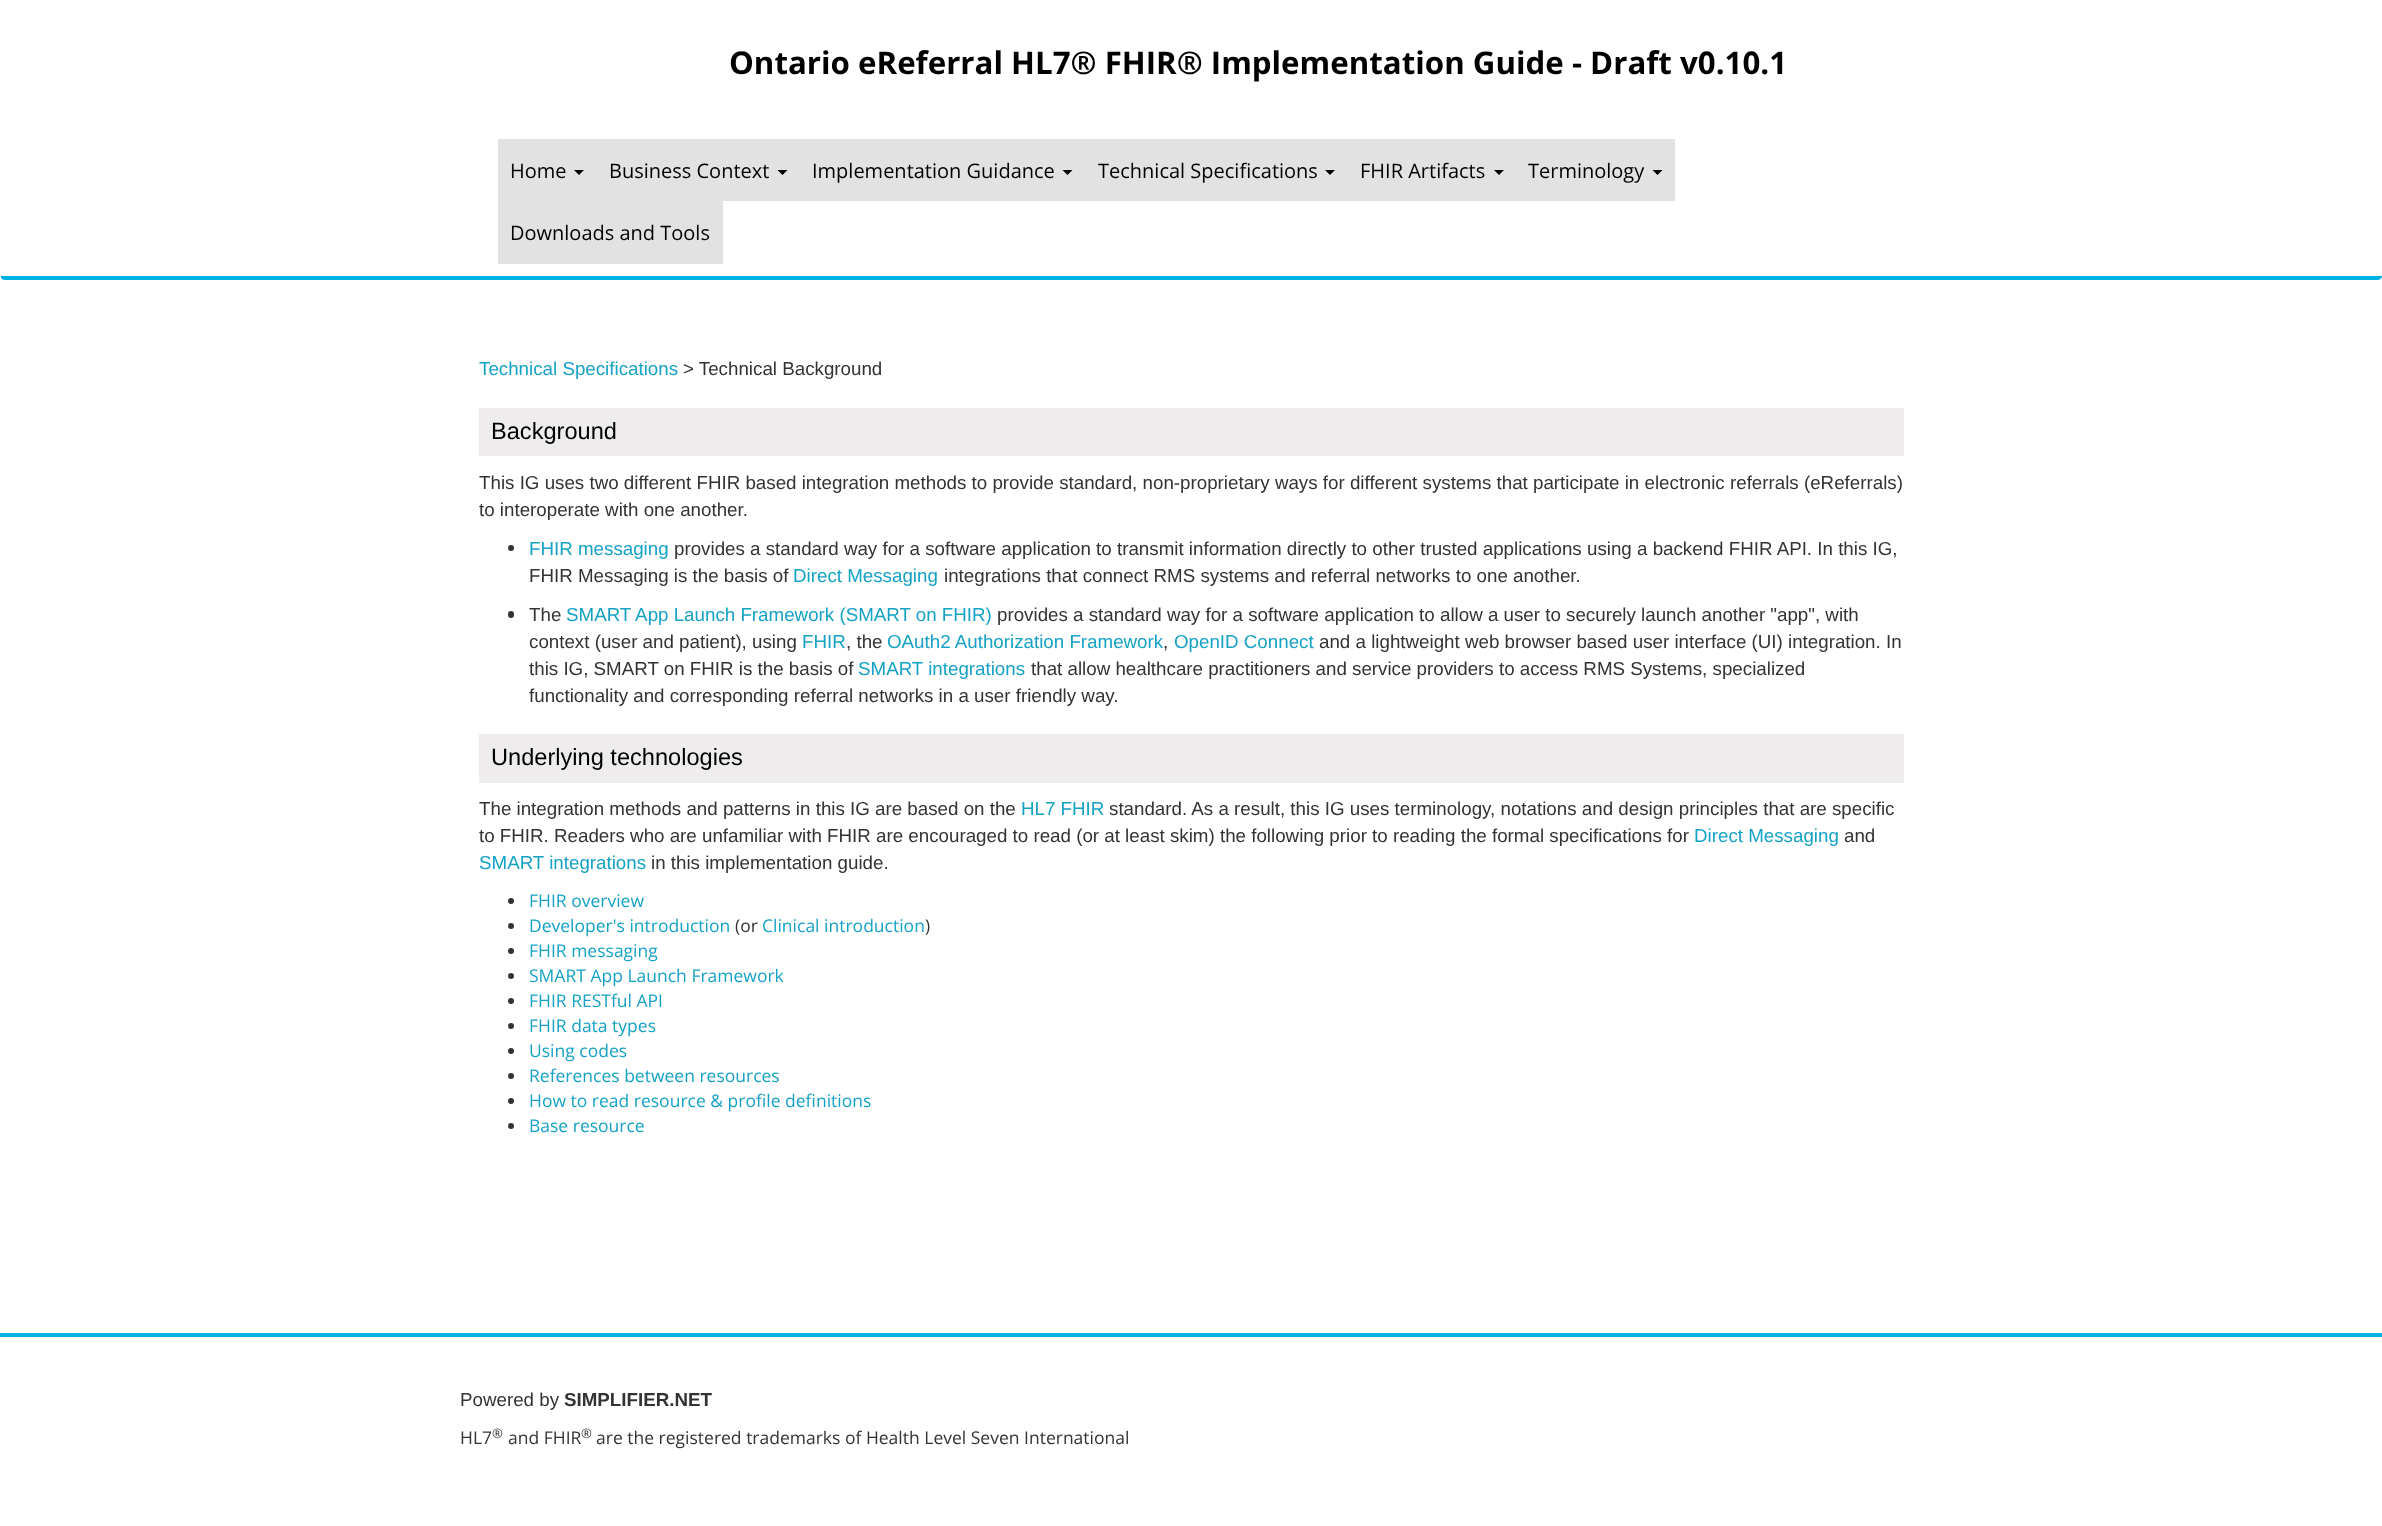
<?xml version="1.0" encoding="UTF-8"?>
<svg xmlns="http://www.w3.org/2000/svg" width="2382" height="1526">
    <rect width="100%" height="100%" fill="#FFFFFF"/>
    <path d="M 5 280 H 2378 C 2379 280 2381 279 2382 277 L 2381 275 C 2381 276 2380 276 2378 276 H 5 H 1 V 278 C 2 279 3 280 5 280 Z" fill="#00B2E3"/>
    <text x="729" y="74" font-family="Open Sans" font-size="31.25" font-weight="700" fill="#000000">Ontario eReferral HL7® FHIR® Implementation Guide - Draft v0.10.1</text>
    <rect x="498" y="139" width="1177" height="62" fill="#E2E2E2"/>
    <text x="510" y="178" font-family="Open Sans" font-size="20" fill="#000000">Home</text>
    <path d="M 574 170 H 584 L 579 175 Z" fill="#000000"/>
    <text x="609" y="178" font-family="Open Sans" font-size="20" fill="#000000">Business Context</text>
    <path d="M 777.5 170 H 787.5 L 782.5 175 Z" fill="#000000"/>
    <text x="812" y="178" font-family="Open Sans" font-size="20" fill="#000000">Implementation Guidance</text>
    <path d="M 1062.5 170 H 1072.5 L 1067.5 175 Z" fill="#000000"/>
    <text x="1098" y="178" font-family="Open Sans" font-size="20" fill="#000000">Technical Specifications</text>
    <path d="M 1325 170 H 1335 L 1330 175 Z" fill="#000000"/>
    <text x="1360" y="178" font-family="Open Sans" font-size="20" fill="#000000">FHIR Artifacts</text>
    <path d="M 1494 170 H 1504 L 1499 175 Z" fill="#000000"/>
    <text x="1528" y="178" font-family="Open Sans" font-size="20" fill="#000000">Terminology</text>
    <path d="M 1652.5 170 H 1662.5 L 1657.5 175 Z" fill="#000000"/>
    <rect x="498" y="201" width="225" height="63" fill="#E2E2E2"/>
    <text x="510" y="240" font-family="Open Sans" font-size="20" fill="#000000">Downloads and Tools</text>
    <text x="479" y="375" font-family="Liberation Sans" font-size="18.75" fill="#16A2C5">Technical Specifications</text>
    <text x="683" y="375" font-family="Liberation Sans" font-size="18.75" fill="#333333">&gt; Technical Background</text>
    <rect x="479" y="408" width="1425" height="48" fill="#EEECEC"/>
    <text x="491" y="439" font-family="Liberation Sans" font-size="23.6" fill="#000000">Background</text>
    <text font-family="Liberation Sans" font-size="18.75" fill="#333333">
        <tspan x="479" y="489">This IG uses two different FHIR based integration methods to provide standard, non-proprietary ways for different systems that participate in electronic referrals (eReferrals)</tspan>
        <tspan x="479" y="516">to interoperate with one another.</tspan>
    </text>
    <circle cx="511" cy="548" r="3" fill="#333333"/>
    <text x="529" y="555" font-family="Liberation Sans" font-size="18.75" fill="#16A2C5">FHIR messaging</text>
    <text x="674" y="555" font-family="Liberation Sans" font-size="18.75" fill="#333333">provides a standard way for a software application to transmit information directly to other trusted applications using a backend FHIR API. In this IG,</text>
    <text x="529" y="582" font-family="Liberation Sans" font-size="18.75" fill="#333333">FHIR Messaging is the basis of</text>
    <text x="793" y="582" font-family="Liberation Sans" font-size="18.75" fill="#16A2C5">Direct Messaging</text>
    <text x="944" y="582" font-family="Liberation Sans" font-size="18.75" fill="#333333">integrations that connect RMS systems and referral networks to one another.</text>
    <rect x="508" y="611" width="6" height="7" rx="3" fill="#333333"/>
    <text x="529" y="621" font-family="Liberation Sans" font-size="18.75" fill="#333333">The</text>
    <text x="566" y="621" font-family="Liberation Sans" font-size="18.75" fill="#16A2C5">SMART App Launch Framework (SMART on FHIR)</text>
    <text x="997" y="621" font-family="Liberation Sans" font-size="18.75" fill="#333333">provides a standard way for a software application to allow a user to securely launch another "app", with</text>
    <text x="529" y="648" font-family="Liberation Sans" font-size="18.75" fill="#333333">context (user and patient), using</text>
    <text x="802" y="648" font-family="Liberation Sans" font-size="18.75" fill="#16A2C5">FHIR</text>
    <text x="846" y="648" font-family="Liberation Sans" font-size="18.75" fill="#333333">, the</text>
    <text x="887" y="648" font-family="Liberation Sans" font-size="18.75" fill="#16A2C5">OAuth2 Authorization Framework</text>
    <text x="1174" y="648" font-family="Liberation Sans" font-size="18.75" fill="#16A2C5">OpenID Connect</text>
    <text x="1319" y="648" font-family="Liberation Sans" font-size="18.75" fill="#333333">and a lightweight web browser based user interface (UI) integration. In</text>
    <text x="1163" y="648" font-family="Liberation Sans" font-size="18.75" fill="#333333">,</text>
    <text x="529" y="675" font-family="Liberation Sans" font-size="18.75" fill="#333333">this IG, SMART on FHIR is the basis of</text>
    <text x="858" y="675" font-family="Liberation Sans" font-size="18.75" fill="#16A2C5">SMART integrations</text>
    <text x="1031" y="675" font-family="Liberation Sans" font-size="18.75" fill="#333333">that allow healthcare practitioners and service providers to access RMS Systems, specialized</text>
    <text x="529" y="702" font-family="Liberation Sans" font-size="18.75" fill="#333333">functionality and corresponding referral networks in a user friendly way.</text>
    <rect x="479" y="734" width="1425" height="49" fill="#EEECEC"/>
    <text x="491" y="765" font-family="Liberation Sans" font-size="23.6" fill="#000000">Underlying technologies</text>
    <text x="479" y="815" font-family="Liberation Sans" font-size="18.75" fill="#333333">The integration methods and patterns in this IG are based on the</text>
    <text x="1021" y="815" font-family="Liberation Sans" font-size="18.75" fill="#16A2C5">HL7 FHIR</text>
    <text x="1109" y="815" font-family="Liberation Sans" font-size="18.75" fill="#333333">standard. As a result, this IG uses terminology, notations and design principles that are specific</text>
    <text x="479" y="842" font-family="Liberation Sans" font-size="18.75" fill="#333333">to FHIR. Readers who are unfamiliar with FHIR are encouraged to read (or at least skim) the following prior to reading the formal specifications for</text>
    <text x="1694" y="842" font-family="Liberation Sans" font-size="18.75" fill="#16A2C5">Direct Messaging</text>
    <text x="1844" y="842" font-family="Liberation Sans" font-size="18.75" fill="#333333">and</text>
    <text x="479" y="869" font-family="Liberation Sans" font-size="18.75" fill="#16A2C5">SMART integrations</text>
    <text x="651" y="869" font-family="Liberation Sans" font-size="18.75" fill="#333333">in this implementation guide.</text>
    <circle cx="511" cy="901" r="3" fill="#333333"/>
    <text x="529" y="907" font-family="Open Sans" font-size="17.5" fill="#16A2C5">FHIR overview</text>
    <circle cx="511" cy="926" r="3" fill="#333333"/>
    <text x="529" y="932" font-family="Open Sans" font-size="17.5" fill="#16A2C5">Developer's introduction</text>
    <text x="735" y="932" font-family="Open Sans" font-size="17.5" fill="#333333">(or</text>
    <text x="762" y="932" font-family="Open Sans" font-size="17.5" fill="#16A2C5">Clinical introduction</text>
    <text x="925" y="932" font-family="Open Sans" font-size="17.5" fill="#333333">)</text>
    <circle cx="511" cy="951" r="3" fill="#333333"/>
    <text x="529" y="957" font-family="Open Sans" font-size="17.5" fill="#16A2C5">FHIR messaging</text>
    <circle cx="511" cy="976" r="3" fill="#333333"/>
    <text x="529" y="982" font-family="Open Sans" font-size="17.5" fill="#16A2C5">SMART App Launch Framework</text>
    <circle cx="511" cy="1001" r="3" fill="#333333"/>
    <text x="529" y="1007" font-family="Open Sans" font-size="17.5" fill="#16A2C5">FHIR RESTful API</text>
    <circle cx="511" cy="1026" r="3" fill="#333333"/>
    <text x="529" y="1032" font-family="Open Sans" font-size="17.5" fill="#16A2C5">FHIR data types</text>
    <circle cx="511" cy="1051" r="3" fill="#333333"/>
    <text x="529" y="1057" font-family="Open Sans" font-size="17.5" fill="#16A2C5">Using codes</text>
    <circle cx="511" cy="1076" r="3" fill="#333333"/>
    <text x="529" y="1082" font-family="Open Sans" font-size="17.5" fill="#16A2C5">References between resources</text>
    <circle cx="511" cy="1101" r="3" fill="#333333"/>
    <text x="529" y="1107" font-family="Open Sans" font-size="17.5" fill="#16A2C5">How to read resource &amp; profile definitions</text>
    <circle cx="511" cy="1126" r="3" fill="#333333"/>
    <text x="529" y="1132" font-family="Open Sans" font-size="17.5" fill="#16A2C5">Base resource</text>
    <rect x="0" y="1333" width="2382" height="4" fill="#00B2E3"/>
    <text x="460" y="1406" font-family="Liberation Sans" font-size="18.75" fill="#333333">Powered by</text>
    <text x="564" y="1406" font-family="Liberation Sans" font-size="18.75" font-weight="700" fill="#333333">SIMPLIFIER.NET</text>
    <text x="460" y="1444" font-family="Open Sans" font-size="17.5" fill="#333333">HL7</text>
    <text x="492" y="1438" font-family="Open Sans" font-size="13" fill="#333333">®</text>
    <text x="508" y="1444" font-family="Open Sans" font-size="17.5" fill="#333333">and FHIR</text>
    <text x="581" y="1438" font-family="Open Sans" font-size="13" fill="#333333">®</text>
    <text x="596" y="1444" font-family="Open Sans" font-size="17.5" fill="#333333">are the registered trademarks of Health Level Seven International</text>
</svg>
